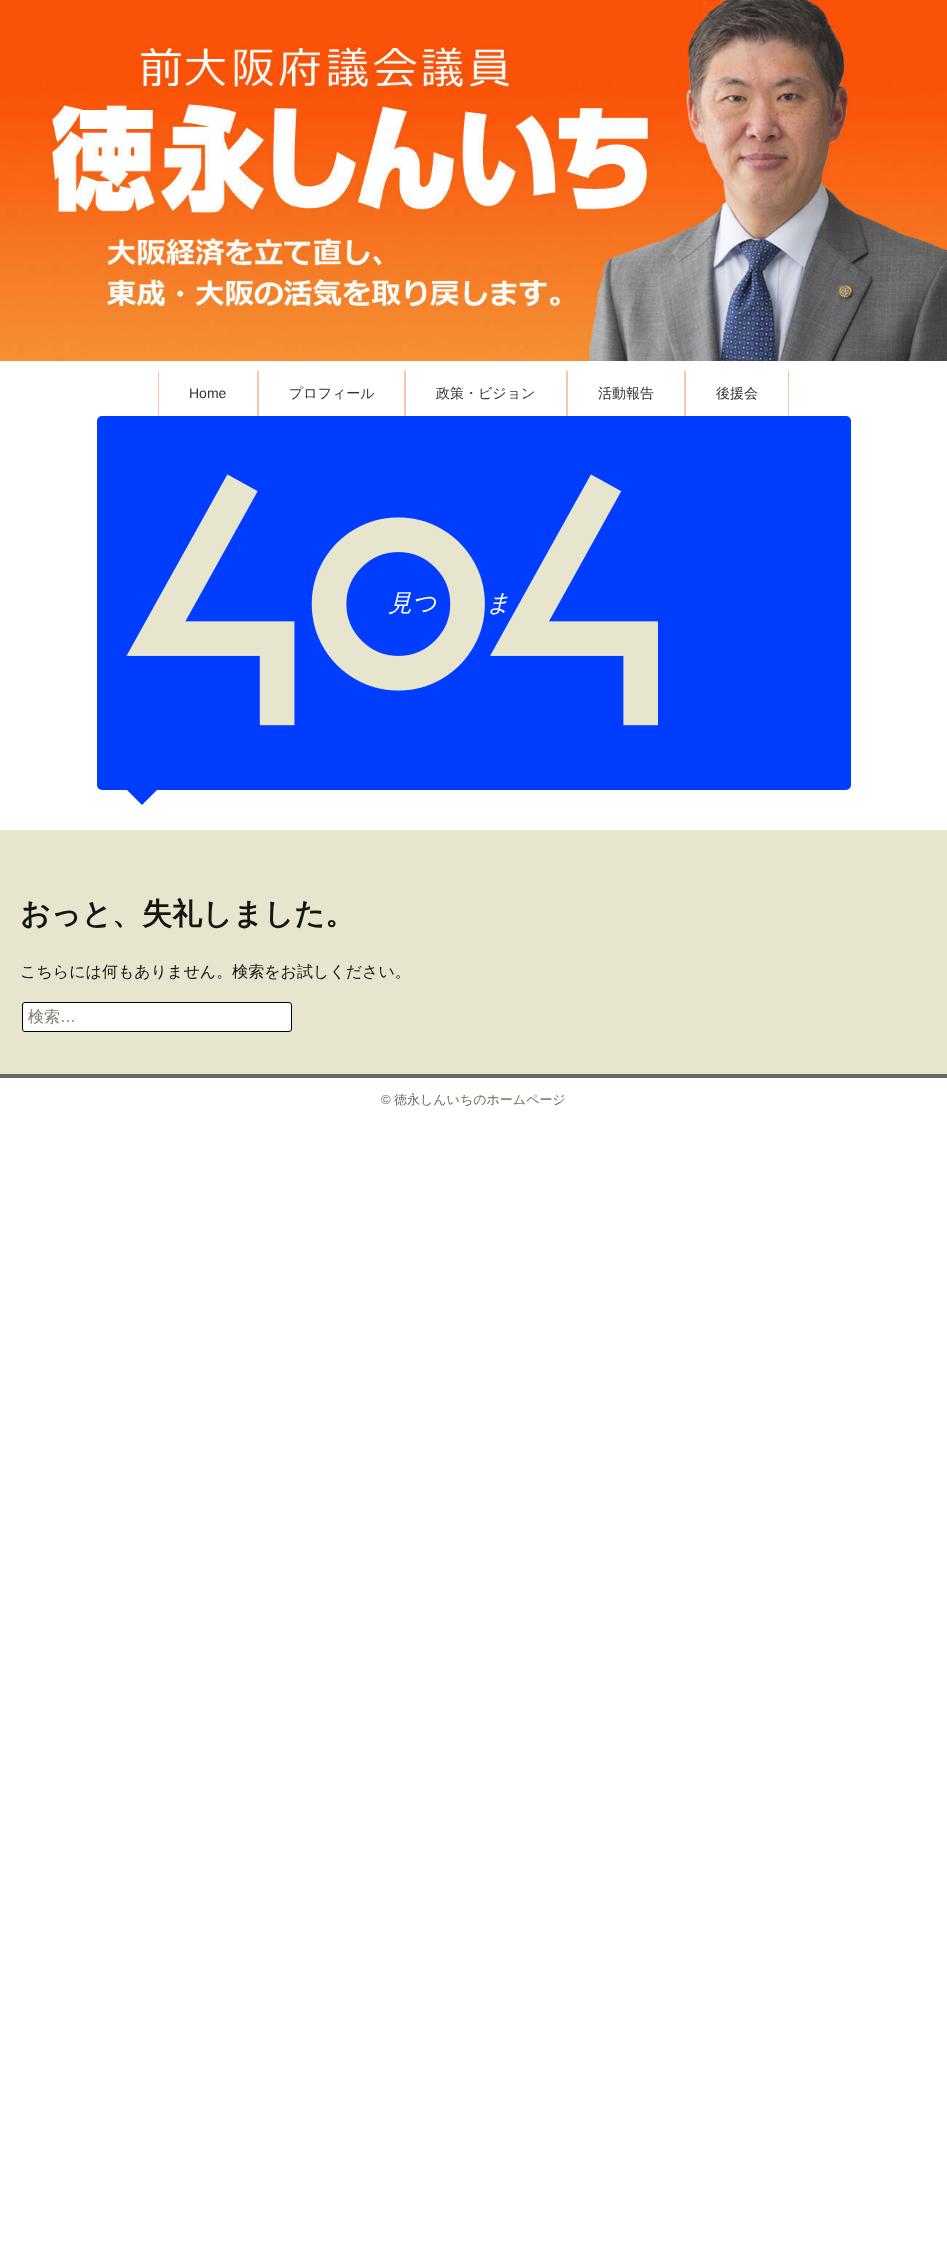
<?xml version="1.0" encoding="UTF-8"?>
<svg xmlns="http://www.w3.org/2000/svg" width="947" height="2246">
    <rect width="100%" height="100%" fill="#FFFFFF"/>
    <image x="0" y="0" width="947" height="361" href="img_01.png"/>
    <rect x="257" y="371" width="2" height="45" fill="#FBC3AA"/>
    <rect x="158" y="371" width="1" height="45" fill="#FBC3AA"/>
    <text x="189" y="398" font-family="Liberation Sans" font-size="14" fill="#333333">Home</text>
    <rect x="404" y="371" width="2" height="45" fill="#FBC3AA"/>
    <text x="289" y="398" font-family="WenQuanYi Zen Hei" font-size="14" font-weight="500" fill="#333333">プロフィール</text>
    <rect x="566" y="371" width="2" height="45" fill="#FBC3AA"/>
    <text x="436" y="398" font-family="WenQuanYi Zen Hei" font-size="14" font-weight="500" fill="#333333">政策・ビジョン</text>
    <rect x="684" y="371" width="2" height="45" fill="#FBC3AA"/>
    <text x="598" y="398" font-family="WenQuanYi Zen Hei" font-size="14" font-weight="500" fill="#333333">活動報告</text>
    <rect x="788" y="371" width="1" height="45" fill="#FBC3AA"/>
    <text x="716" y="398" font-family="WenQuanYi Zen Hei" font-size="14" font-weight="500" fill="#333333">後援会</text>
    <rect x="97" y="416" width="754" height="374" rx="5" fill="#013DFF"/>
    <text x="388" y="611" font-family="WenQuanYi Zen Hei" font-size="24" font-weight="500" font-style="italic" fill="#FFFFFF">見つ</text>
    <text x="486" y="611" font-family="WenQuanYi Zen Hei" font-size="24" font-weight="500" font-style="italic" fill="#FFFFFF">ま</text>
    <image x="126" y="474" width="532" height="252" href="img_02.png"/>
    <path d="M 127 790 H 157 L 142 805 Z" fill="#013DFF"/>
    <rect x="0" y="830" width="947" height="244" fill="#E8E5CE"/>
    <text x="20" y="924" font-family="WenQuanYi Zen Hei" font-size="30" font-weight="700" fill="#141412">おっと、失礼しました。</text>
    <text x="20" y="977" font-family="WenQuanYi Zen Hei" font-size="16" font-weight="500" fill="#141412">こちらには何もありません。検索をお試しください。</text>
    <rect x="22.5" y="1002.5" width="269" height="29" rx="2.5" fill="#FFFFFF" stroke="#000000"/>
    <text x="28" y="1022" font-family="WenQuanYi Zen Hei" font-size="16" font-weight="500" fill="#7D7B6D">検索</text>
    <text x="60" y="1022" font-family="Liberation Sans" font-size="16" fill="#7D7B6D">…</text>
    <rect x="0" y="1074" width="947" height="4" fill="#666666"/>
    <text x="381" y="1104" font-family="Liberation Sans" font-size="13" fill="#686758">©</text>
    <text x="394" y="1104" font-family="WenQuanYi Zen Hei" font-size="13" font-weight="500" fill="#686758">徳永しんいちのホームページ</text>
</svg>
